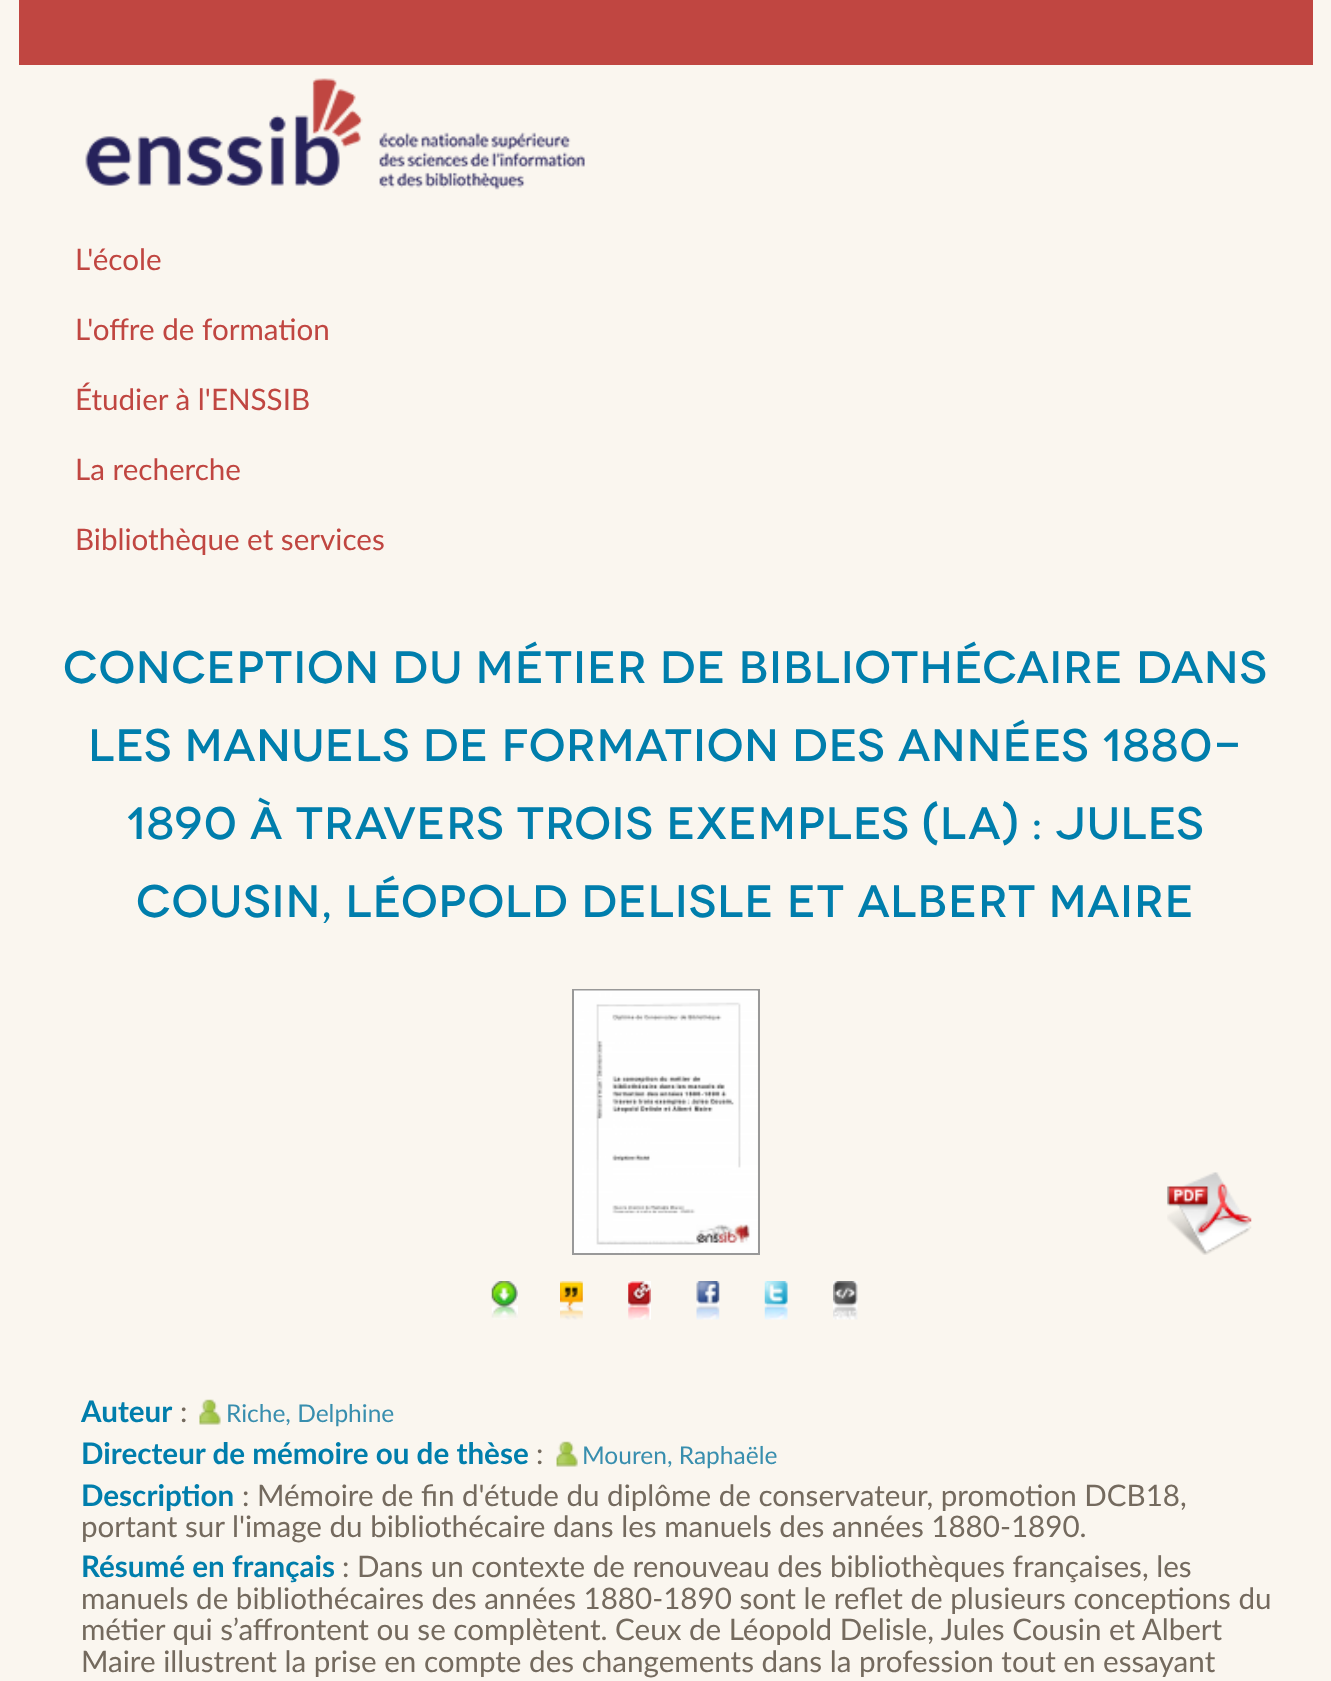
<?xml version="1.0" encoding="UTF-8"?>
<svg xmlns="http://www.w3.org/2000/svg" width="1331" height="1681">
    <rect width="100%" height="100%" fill="#FAF6EF"/>
    <rect x="19" y="0" width="1294" height="65" fill="#C04641"/>
    <image x="85" y="78" width="500" height="112" href="img_01.png"/>
    <text x="75" y="270" font-family="Lato" font-size="29.6" fill="#C04641">L'école</text>
    <text x="75" y="340" font-family="Lato" font-size="29.6" fill="#C04641">L'offre de formation</text>
    <text x="75" y="410" font-family="Lato" font-size="29.6" fill="#C04641">Étudier à l'ENSSIB</text>
    <text x="75" y="480" font-family="Lato" font-size="29.6" fill="#C04641">La recherche</text>
    <text x="75" y="550" font-family="Lato" font-size="29.6" fill="#C04641">Bibliothèque et services</text>
    <text x="63" y="683" font-family="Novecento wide" font-size="45.5" font-weight="500" letter-spacing="0.9" fill="#007EAC">Conception du métier de bibliothécaire dans</text>
    <text x="88" y="761" font-family="Novecento wide" font-size="45.5" font-weight="500" letter-spacing="0.9" fill="#007EAC">les manuels de formation des années 1880-</text>
    <text x="126" y="839" font-family="Novecento wide" font-size="45.5" font-weight="500" letter-spacing="0.9" fill="#007EAC">1890 à travers trois exemples (La) : Jules</text>
    <text x="136" y="917" font-family="Novecento wide" font-size="45.5" font-weight="500" letter-spacing="0.9" fill="#007EAC">Cousin, Léopold Delisle et Albert Maire</text>
    <rect x="573" y="990" width="186" height="264" fill="none" stroke="#999999" stroke-width="2"/>
    <image x="574" y="990" width="184" height="263" href="img_02.png"/>
    <image x="1167" y="1172" width="85" height="83" href="img_03.png"/>
    <image x="491" y="1281" width="27" height="39" href="img_04.png"/>
    <image x="560" y="1281" width="23" height="39" href="img_05.png"/>
    <image x="628" y="1281" width="23" height="39" href="img_06.png"/>
    <image x="696" y="1281" width="24" height="39" href="img_07.png"/>
    <image x="764" y="1281" width="24" height="39" href="img_08.png"/>
    <image x="833" y="1281" width="25" height="39" href="img_09.png"/>
    <text x="81" y="1422" font-family="Lato" font-size="29.6" font-weight="700" fill="#007EAC">Auteur</text>
    <text x="180" y="1422" font-family="Lato" font-size="29.6" fill="#746A5E">:</text>
    <image x="199" y="1399" width="22" height="26" href="img_10.png"/>
    <text x="226" y="1422" font-family="Lato" font-size="24.5" fill="#388EAE">Riche, Delphine</text>
    <text x="81" y="1464" font-family="Lato" font-size="29.6" font-weight="700" fill="#007EAC">Directeur de mémoire ou de thèse</text>
    <text x="536" y="1464" font-family="Lato" font-size="29.6" fill="#746A5E">:</text>
    <image x="556" y="1441" width="22" height="26" href="img_11.png"/>
    <text x="582" y="1464" font-family="Lato" font-size="24.5" fill="#388EAE">Mouren, Raphaële</text>
    <text x="81" y="1506" font-family="Lato" font-size="29.6" font-weight="700" fill="#007EAC">Description</text>
    <text x="242" y="1506" font-family="Lato" font-size="29.6" fill="#746A5E">: Mémoire de fin d'étude du diplôme de conservateur, promotion DCB18,</text>
    <text x="81" y="1537" font-family="Lato" font-size="29.6" fill="#746A5E">portant sur l'image du bibliothécaire dans les manuels des années 1880-1890.</text>
    <text x="81" y="1577" font-family="Lato" font-size="29.6" font-weight="700" fill="#007EAC">Résumé en français</text>
    <text x="342" y="1577" font-family="Lato" font-size="29.6" fill="#746A5E">: Dans un contexte de renouveau des bibliothèques françaises, les</text>
    <text font-family="Lato" font-size="29.6" fill="#746A5E">
        <tspan x="81" y="1609">manuels de bibliothécaires des années 1880-1890 sont le reflet de plusieurs conceptions du</tspan>
        <tspan x="81" y="1640">métier qui s’affrontent ou se complètent. Ceux de Léopold Delisle, Jules Cousin et Albert</tspan>
        <tspan x="81" y="1672">Maire illustrent la prise en compte des changements dans la profession tout en essayant</tspan>
    </text>
</svg>
